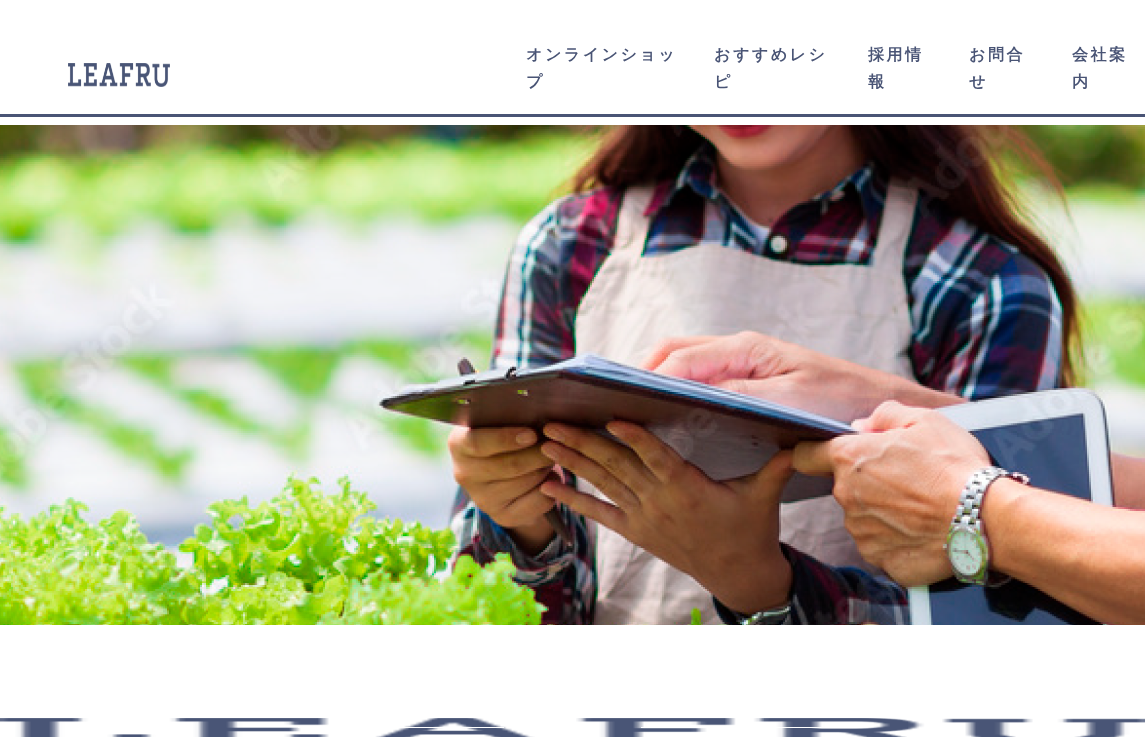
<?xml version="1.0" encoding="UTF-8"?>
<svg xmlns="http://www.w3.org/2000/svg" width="1145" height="737">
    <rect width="100%" height="100%" fill="#FFFFFF"/>
    <image x="68" y="63" width="102" height="24" href="img_01.png"/>
    <text font-family="WenQuanYi Zen Hei" font-size="16" font-weight="700" letter-spacing="2.5" fill="#495475">
        <tspan x="526" y="60">オンラインショッ</tspan>
        <tspan x="526" y="87">プ</tspan>
    </text>
    <text font-family="WenQuanYi Zen Hei" font-size="16" font-weight="700" letter-spacing="2.5" fill="#495475">
        <tspan x="714" y="60">おすすめレシ</tspan>
        <tspan x="714" y="87">ピ</tspan>
    </text>
    <text font-family="WenQuanYi Zen Hei" font-size="16" font-weight="700" letter-spacing="2.5" fill="#495475">
        <tspan x="868" y="60">採用情</tspan>
        <tspan x="868" y="87">報</tspan>
    </text>
    <text font-family="WenQuanYi Zen Hei" font-size="16" font-weight="700" letter-spacing="2.5" fill="#495475">
        <tspan x="969" y="60">お問合</tspan>
        <tspan x="969" y="87">せ</tspan>
    </text>
    <text font-family="WenQuanYi Zen Hei" font-size="16" font-weight="700" letter-spacing="2.5" fill="#495475">
        <tspan x="1072" y="60">会社案</tspan>
        <tspan x="1072" y="87">内</tspan>
    </text>
    <rect x="0" y="114" width="1145" height="3" fill="#495475"/>
    <image x="0" y="125" width="1145" height="500" href="img_02.png"/>
    <image x="0" y="718" width="1145" height="19" href="img_03.png"/>
    <rect x="298" y="727" width="206" height="1" fill="#FFFFFF"/>
    <rect x="641" y="727" width="181" height="1" fill="#FFFFFF"/>
</svg>
